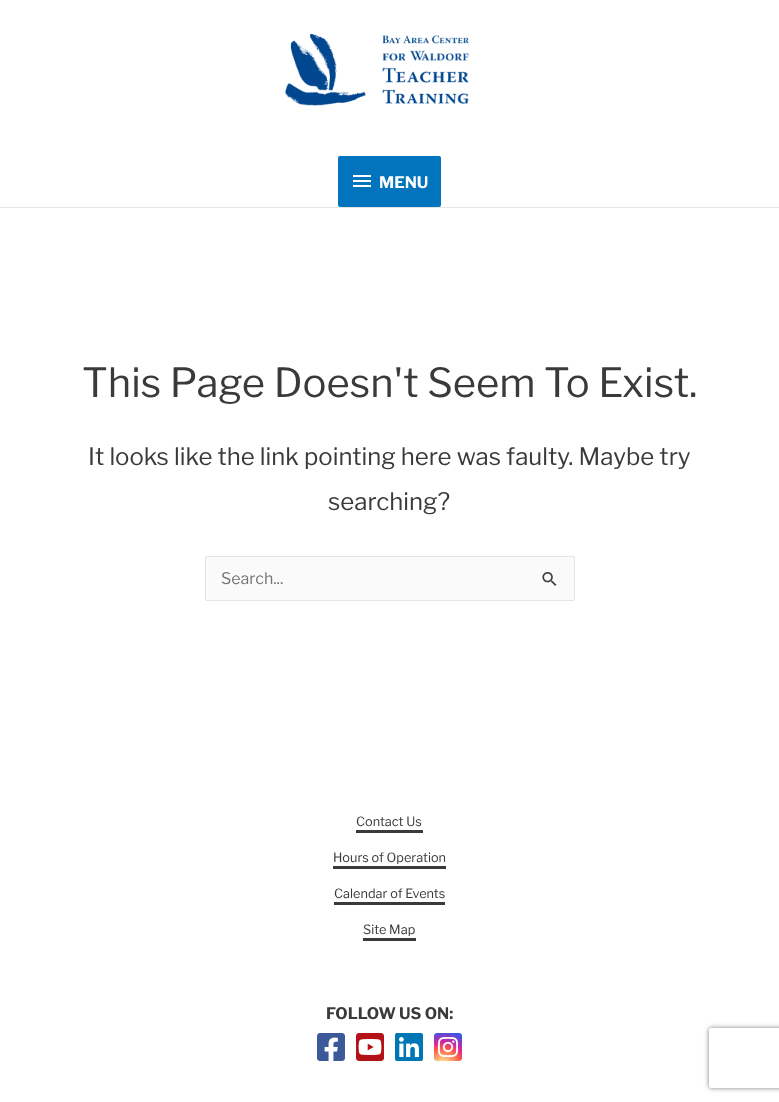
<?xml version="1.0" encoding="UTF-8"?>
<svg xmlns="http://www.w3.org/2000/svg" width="779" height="1102">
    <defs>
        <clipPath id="clip1"><path d="M 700 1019 H 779 V 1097 H 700 Z M 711 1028 H 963 C 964 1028 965 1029 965 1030 V 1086 C 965 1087 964 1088 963 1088 H 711 C 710 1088 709 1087 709 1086 V 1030 C 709 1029 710 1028 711 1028 Z" clip-rule="evenodd"/></clipPath>
        <filter id="blur1" x="-50%" y="-200%" width="200%" height="500%"><feGaussianBlur stdDeviation="2.5"/></filter>
    </defs>
    <rect width="100%" height="100%" fill="#FFFFFF"/>
    <rect x="0" y="207" width="779" height="1" fill="#E5E5E5"/>
    <image x="285" y="33" width="184" height="73" href="img_01.png"/>
    <rect x="338" y="156" width="103" height="51" rx="2" fill="#0274BE"/>
    <image x="353" y="175" width="18" height="12" href="img_02.png"/>
    <text x="379" y="188" font-family="Libre Franklin" font-size="16" font-weight="700" fill="#FFFFFF">MENU</text>
    <text x="82" y="397" font-family="Libre Franklin" font-size="40" font-weight="100" fill="#3A3A3A">This Page Doesn't Seem To Exist.</text>
    <text x="88" y="465" font-family="Libre Franklin" font-size="24" font-weight="100" fill="#3A3A3A">It looks like the link pointing here was faulty. Maybe try</text>
    <text x="328" y="510" font-family="Libre Franklin" font-size="24" font-weight="100" fill="#3A3A3A">searching?</text>
    <rect x="205.5" y="556.5" width="369" height="44" rx="1.5" fill="#FAFAFA" stroke="#E5E5E5"/>
    <text x="221" y="584" font-family="Libre Franklin" font-size="16" font-weight="100" fill="#757575">Search...</text>
    <image x="542" y="572" width="15" height="14" href="img_03.png"/>
    <text x="356" y="826" font-family="Libre Franklin" font-size="12.75" font-weight="100" fill="#3A3A3A">Contact Us</text>
    <rect x="356" y="830" width="67" height="3" fill="#3A3A3A"/>
    <text x="333" y="862" font-family="Libre Franklin" font-size="12.75" font-weight="100" fill="#3A3A3A">Hours of Operation</text>
    <rect x="333" y="866" width="113" height="3" fill="#3A3A3A"/>
    <text x="334" y="898" font-family="Libre Franklin" font-size="12.75" font-weight="100" fill="#3A3A3A">Calendar of Events</text>
    <rect x="334" y="902" width="111" height="3" fill="#3A3A3A"/>
    <text x="363" y="934" font-family="Libre Franklin" font-size="12.75" font-weight="100" fill="#3A3A3A">Site Map</text>
    <rect x="363" y="938" width="53" height="3" fill="#3A3A3A"/>
    <text x="326" y="1019" font-family="Libre Franklin" font-size="16" font-weight="700" fill="#3A3A3A">FOLLOW US ON:</text>
    <image x="317" y="1033" width="28" height="28" href="img_04.png"/>
    <image x="356" y="1033" width="28" height="28" href="img_05.png"/>
    <image x="395" y="1033" width="28" height="28" href="img_06.png"/>
    <image x="434" y="1033" width="28" height="28" href="img_07.png"/>
    <g clip-path="url(#clip1)">
        <rect x="709" y="1028" width="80" height="60" rx="2" fill="#808080" filter="url(#blur1)"/>
    </g>
</svg>
